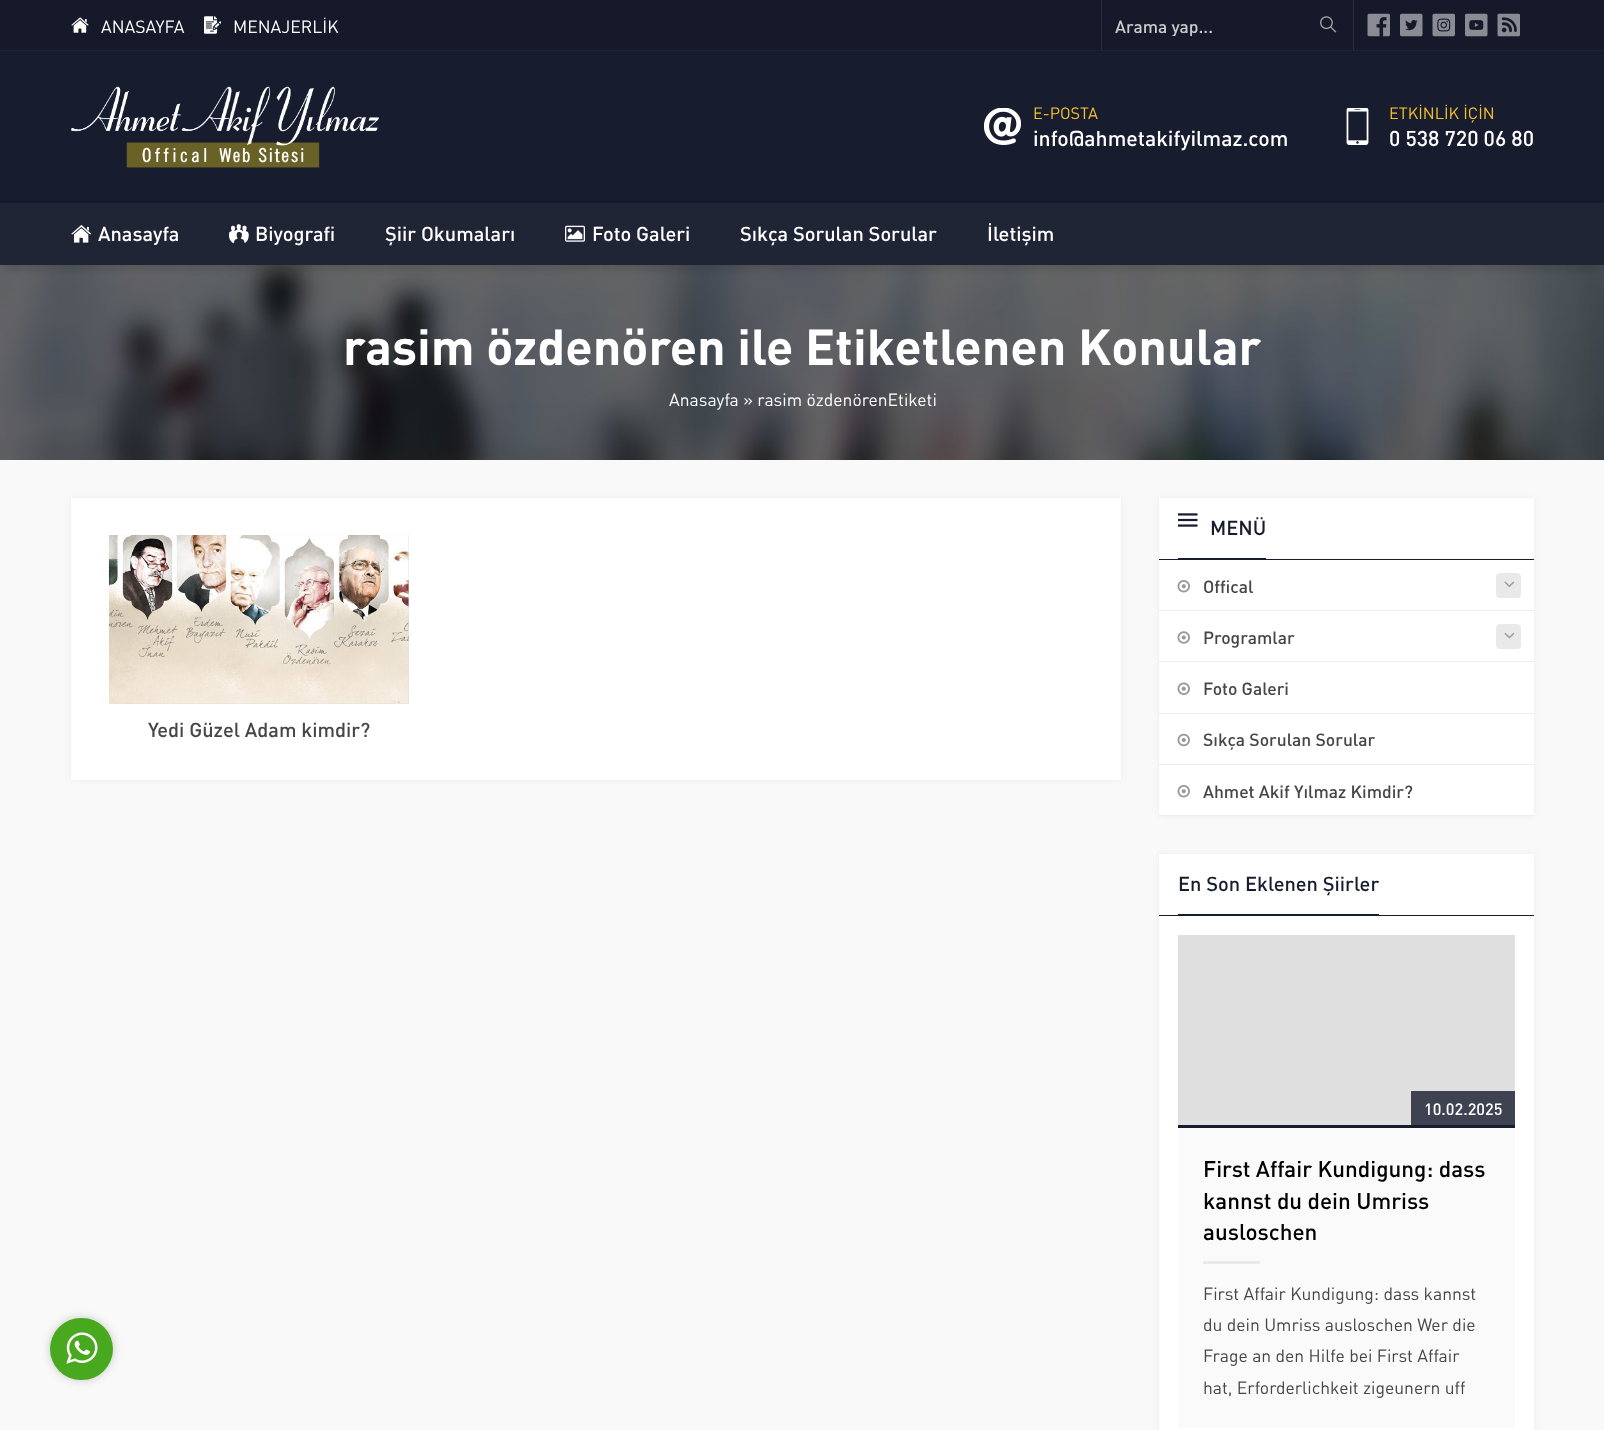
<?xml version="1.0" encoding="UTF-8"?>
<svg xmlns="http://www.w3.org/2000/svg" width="1604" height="1430">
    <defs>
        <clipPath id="clip1"><rect x="1115" y="14" width="175" height="22"/></clipPath>
        <filter id="blur1" x="-50%" y="-200%" width="200%" height="500%"><feGaussianBlur stdDeviation="3"/></filter>
        <filter id="blur2" x="-50%" y="-200%" width="200%" height="500%"><feGaussianBlur stdDeviation="5"/></filter>
    </defs>
    <rect width="100%" height="100%" fill="#F9F9F9"/>
    <rect x="0" y="51" width="1604" height="152" fill="#171C2E"/>
    <rect x="0" y="0" width="1604" height="50" fill="#151929"/>
    <rect x="0" y="50" width="1604" height="1" fill="#1E2232"/>
    <image x="71" y="17" width="18" height="16" href="img_01.png"/>
    <text x="101" y="33" font-family="DIN" font-size="17.5" fill="#FFFFFF">ANASAYFA</text>
    <image x="204" y="16" width="17" height="18" href="img_02.png"/>
    <text x="233" y="33" font-family="DIN" font-size="17.5" fill="#FFFFFF">MENAJERLİK</text>
    <rect x="1353" y="0" width="1" height="50" fill="#2C303E"/>
    <rect x="1101" y="0" width="1" height="50" fill="#2C303E"/>
    <g clip-path="url(#clip1)">
        <text x="1115" y="33" font-family="DIN" font-size="17.5" font-weight="500" fill="#CBCBCB">Arama yap...</text>
    </g>
    <image x="1320" y="16" width="17" height="17" href="img_03.png"/>
    <image x="1367" y="13" width="23" height="24" href="img_04.png"/>
    <image x="1400" y="13" width="23" height="24" href="img_05.png"/>
    <image x="1432" y="13" width="23" height="24" href="img_06.png"/>
    <image x="1465" y="13" width="23" height="24" href="img_07.png"/>
    <image x="1497" y="13" width="23" height="24" href="img_08.png"/>
    <image x="71" y="86" width="308" height="82" href="img_09.png"/>
    <image x="984" y="108" width="37" height="37" href="img_10.png"/>
    <text x="1033" y="119" font-family="DIN" font-size="16.25" fill="#FAC32D">E-POSTA</text>
    <text x="1033" y="146" font-family="DIN" font-size="21.25" font-weight="500" fill="#FFFFFF">info@ahmetakifyilmaz.com</text>
    <image x="1346" y="108" width="23" height="37" href="img_11.png"/>
    <text x="1389" y="119" font-family="DIN" font-size="16.25" fill="#FAC32D">ETKİNLİK İÇİN</text>
    <text x="1389" y="146" font-family="DIN" font-size="21.25" font-weight="500" fill="#FFFFFF">0 538 720 06 80</text>
    <image x="0" y="265" width="1604" height="195" href="img_15.png"/>
    <rect x="6" y="220" width="1593" height="51" fill="#000000" fill-opacity="0.1" filter="url(#blur1)"/>
    <rect x="0" y="201" width="1604" height="1" fill="#151A2B"/>
    <rect x="0" y="203" width="1604" height="62" fill="#202536"/>
    <image x="71" y="225" width="20" height="18" href="img_12.png"/>
    <text x="98" y="241" font-family="DIN" font-size="20" font-weight="500" fill="#FFFFFF">Anasayfa</text>
    <image x="229" y="224" width="20" height="20" href="img_13.png"/>
    <text x="255" y="241" font-family="DIN" font-size="20" font-weight="500" fill="#FFFFFF">Biyografi</text>
    <text x="385" y="241" font-family="DIN" font-size="20" font-weight="500" fill="#FFFFFF">Şiir Okumaları</text>
    <image x="565" y="225" width="20" height="17" href="img_14.png"/>
    <text x="592" y="241" font-family="DIN" font-size="20" font-weight="500" fill="#FFFFFF">Foto Galeri</text>
    <text x="740" y="241" font-family="DIN" font-size="20" font-weight="500" fill="#FFFFFF">Sıkça Sorulan Sorular</text>
    <text x="987" y="241" font-family="DIN" font-size="20" font-weight="500" fill="#FFFFFF">İletişim</text>
    <text x="343" y="365" font-family="DIN" font-size="50" font-weight="700" fill="#FFFFFF">rasim özdenören ile Etiketlenen Konular</text>
    <text x="669" y="406" font-family="DIN" font-size="17.5" fill="#FFFFFF">Anasayfa » rasim özdenörenEtiketi</text>
    <rect x="50" y="1318" width="63" height="62" rx="31" fill="#000000" fill-opacity="0.2" filter="url(#blur2)"/>
    <rect x="50" y="1318" width="63" height="62" rx="31" fill="#48A91F"/>
    <image x="66" y="1332" width="32" height="32" href="img_16.png"/>
    <rect x="71" y="498" width="1050" height="282" fill="#000000" fill-opacity="0.05" filter="url(#blur1)"/>
    <rect x="71" y="498" width="1050" height="282" fill="#FFFFFF"/>
    <rect x="109" y="535" width="300" height="169" fill="#DFDFDF"/>
    <image x="108" y="535" width="301" height="169" href="img_17.png"/>
    <text x="148" y="737" font-family="DIN" font-size="20" font-weight="500" fill="#464646">Yedi Güzel Adam kimdir?</text>
    <rect x="1159" y="498" width="375" height="318" fill="#000000" fill-opacity="0.05" filter="url(#blur1)"/>
    <rect x="1159" y="498" width="375" height="317" fill="#FFFFFF"/>
    <image x="1178" y="513" width="20" height="14" href="img_18.png"/>
    <text x="1210" y="535" font-family="DIN" font-size="20" font-weight="500" fill="#171C2E">MENÜ</text>
    <rect x="1178" y="558" width="88" height="1" fill="#171C2E"/>
    <rect x="1159" y="559" width="375" height="1" fill="#171C2E"/>
    <rect x="1159" y="610" width="375" height="1" fill="#EDEDED"/>
    <image x="1177" y="580" width="13" height="13" href="img_19.png"/>
    <text x="1203" y="593" font-family="DIN" font-size="17.5" font-weight="500" fill="#464646">Offical</text>
    <rect x="1496" y="573" width="25" height="25" rx="4" fill="#E9E9E9"/>
    <image x="1504" y="581" width="11" height="7" href="img_20.png"/>
    <rect x="1159" y="661" width="375" height="1" fill="#EDEDED"/>
    <image x="1177" y="631" width="13" height="13" href="img_21.png"/>
    <text x="1203" y="644" font-family="DIN" font-size="17.5" font-weight="500" fill="#464646">Programlar</text>
    <rect x="1496" y="624" width="25" height="25" rx="4" fill="#E9E9E9"/>
    <image x="1504" y="632" width="11" height="7" href="img_22.png"/>
    <rect x="1159" y="713" width="375" height="1" fill="#EDEDED"/>
    <image x="1177" y="682" width="13" height="13" href="img_23.png"/>
    <text x="1203" y="695" font-family="DIN" font-size="17.5" font-weight="500" fill="#464646">Foto Galeri</text>
    <rect x="1159" y="764" width="375" height="1" fill="#EDEDED"/>
    <image x="1177" y="733" width="13" height="14" href="img_24.png"/>
    <text x="1203" y="746" font-family="DIN" font-size="17.5" font-weight="500" fill="#464646">Sıkça Sorulan Sorular</text>
    <rect x="1159" y="815" width="375" height="1" fill="#EDEDED"/>
    <image x="1177" y="785" width="13" height="13" href="img_19.png"/>
    <text x="1203" y="798" font-family="DIN" font-size="17.5" font-weight="500" fill="#464646">Ahmet Akif Yılmaz Kimdir?</text>
    <rect x="1159" y="854" width="375" height="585" fill="#000000" fill-opacity="0.05" filter="url(#blur1)"/>
    <rect x="1159" y="854" width="375" height="576" fill="#FFFFFF"/>
    <text x="1178" y="891" font-family="DIN" font-size="20" font-weight="500" fill="#171C2E">En Son Eklenen Şiirler</text>
    <rect x="1178" y="914" width="201" height="1" fill="#171C2E"/>
    <rect x="1159" y="915" width="375" height="1" fill="#171C2E"/>
    <rect x="1178" y="1128" width="337" height="300" fill="#FAFAFA"/>
    <rect x="1178" y="935" width="337" height="190" fill="#DFDFDF"/>
    <rect x="1411" y="1091" width="104" height="34" fill="#3F4351"/>
    <text x="1424" y="1115" font-family="DIN" font-size="16.25" font-weight="500" fill="#FFFFFF">10.02.2025</text>
    <rect x="1178" y="1125" width="337" height="3" fill="#171C2E"/>
    <text font-family="DIN" font-size="22.5" font-weight="500" fill="#000000">
        <tspan x="1203" y="1177">First Affair Kundigung: dass</tspan>
        <tspan x="1203" y="1209">kannst du dein Umriss</tspan>
        <tspan x="1203" y="1240">ausloschen</tspan>
    </text>
    <rect x="1203" y="1261" width="57" height="3" fill="#E9E9E9"/>
    <text font-family="DIN" font-size="17.5" fill="#464646">
        <tspan x="1203" y="1300">First Affair Kundigung: dass kannst</tspan>
        <tspan x="1203" y="1331">du dein Umriss ausloschen Wer die</tspan>
        <tspan x="1203" y="1362">Frage an den Hilfe bei First Affair</tspan>
        <tspan x="1203" y="1394">hat, Erforderlichkeit zigeunern uff</tspan>
    </text>
</svg>
